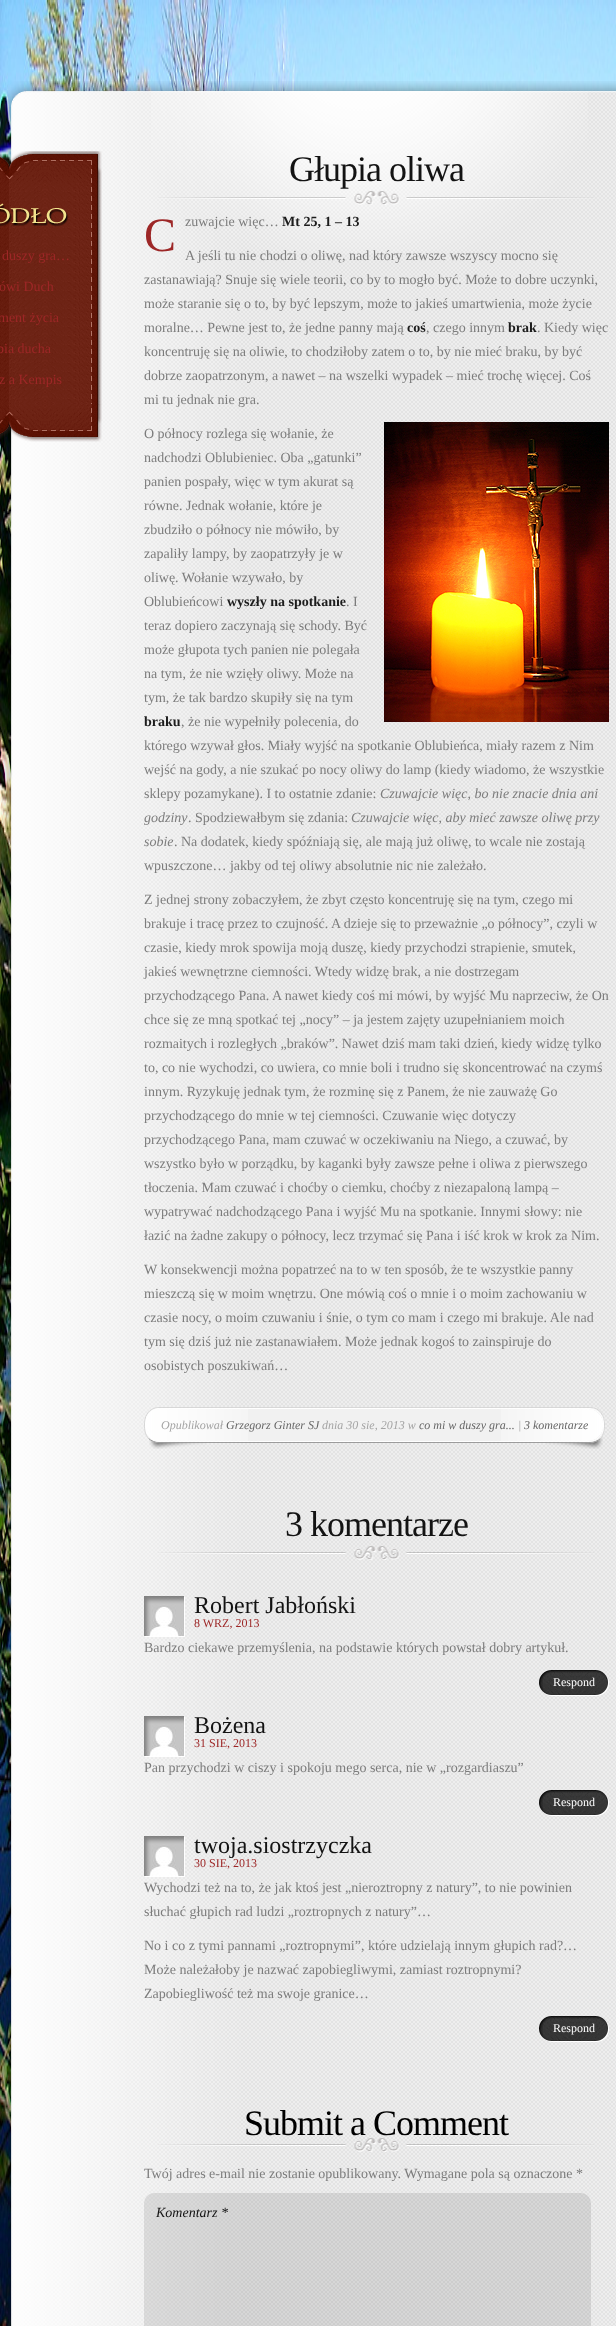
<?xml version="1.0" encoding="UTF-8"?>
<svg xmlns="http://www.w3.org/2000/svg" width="616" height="2326">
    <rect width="100%" height="100%" fill="#FFFFFF"/>
    <image x="0" y="0" width="616" height="2326" href="img_01.png"/>
    <image x="4" y="81" width="612" height="26" href="img_02.png"/>
    <image x="1" y="107" width="615" height="2219" href="img_07.png"/>
    <image x="0" y="151" width="102" height="32" href="img_03.png"/>
    <image x="0" y="183" width="102" height="221" href="img_04.png"/>
    <image x="0" y="203" width="69" height="24" href="img_05.png"/>
    <text x="2" y="260" font-family="Liberation Serif" font-size="14" fill="#9D2727">duszy gra…</text>
    <text x="-1" y="291" font-family="Liberation Serif" font-size="14" fill="#9D2727">ówi Duch</text>
    <text x="-2" y="322" font-family="Liberation Serif" font-size="14" fill="#9D2727">ment życia</text>
    <text x="-3" y="353" font-family="Liberation Serif" font-size="14" fill="#9D2727">pia ducha</text>
    <text x="-1" y="384" font-family="Liberation Serif" font-size="14" fill="#9D2727">z a Kempis</text>
    <image x="0" y="404" width="102" height="38" href="img_06.png"/>
    <image x="151" y="91" width="437" height="163" href="img_08.png"/>
    <image x="158" y="191" width="436" height="14" href="img_09.png"/>
    <text x="289" y="181" font-family="Liberation Serif" font-size="36" letter-spacing="-1" fill="#131313">Głupia oliwa</text>
    <text x="144" y="251" font-family="Liberation Serif" font-size="48" fill="#9D2727">C</text>
    <text x="185" y="226" font-family="Liberation Serif" font-size="14" fill="#7C7C7C">zuwajcie więc…</text>
    <text x="282" y="226" font-family="Liberation Serif" font-size="14" font-weight="700" fill="#1C1C1C">Mt 25, 1 – 13</text>
    <text x="185" y="260" font-family="Liberation Serif" font-size="14" fill="#7C7C7C">A jeśli tu nie chodzi o oliwę, nad który zawsze wszyscy mocno się</text>
    <text font-family="Liberation Serif" font-size="14" fill="#7C7C7C">
        <tspan x="144" y="284">zastanawiają? Snuje się wiele teorii, co by to mogło być. Może to dobre uczynki,</tspan>
        <tspan x="144" y="308">może staranie się o to, by być lepszym, może to jakieś umartwienia, może życie</tspan>
        <tspan x="144" y="332">moralne… Pewne jest to, że jedne panny mają</tspan>
    </text>
    <text x="407" y="332" font-family="Liberation Serif" font-size="14" font-weight="700" fill="#1C1C1C">coś</text>
    <text x="426" y="332" font-family="Liberation Serif" font-size="14" fill="#7C7C7C">, czego innym</text>
    <text x="508" y="332" font-family="Liberation Serif" font-size="14" font-weight="700" fill="#1C1C1C">brak</text>
    <text x="537" y="332" font-family="Liberation Serif" font-size="14" fill="#7C7C7C">. Kiedy więc</text>
    <text font-family="Liberation Serif" font-size="14" fill="#7C7C7C">
        <tspan x="144" y="356">koncentruję się na oliwie, to chodziłoby zatem o to, by nie mieć braku, by być</tspan>
        <tspan x="144" y="380">dobrze zaopatrzonym, a nawet – na wszelki wypadek – mieć trochę więcej. Coś</tspan>
        <tspan x="144" y="404">mi tu jednak nie gra.</tspan>
    </text>
    <text x="144" y="438" font-family="Liberation Serif" font-size="14" fill="#7C7C7C">O północy rozlega się wołanie, że</text>
    <image x="384" y="422" width="225" height="300" href="img_10.png"/>
    <text font-family="Liberation Serif" font-size="14" fill="#7C7C7C">
        <tspan x="144" y="462">nadchodzi Oblubieniec. Oba „gatunki”</tspan>
        <tspan x="144" y="486">panien pospały, więc w tym akurat są</tspan>
        <tspan x="144" y="510">równe. Jednak wołanie, które je</tspan>
        <tspan x="144" y="534">zbudziło o północy nie mówiło, by</tspan>
        <tspan x="144" y="558">zapaliły lampy, by zaopatrzyły je w</tspan>
        <tspan x="144" y="582">oliwę. Wołanie wzywało, by</tspan>
        <tspan x="144" y="606">Oblubieńcowi</tspan>
    </text>
    <text x="227" y="606" font-family="Liberation Serif" font-size="14" font-weight="700" fill="#1C1C1C">wyszły na spotkanie</text>
    <text x="346" y="606" font-family="Liberation Serif" font-size="14" fill="#7C7C7C">. I</text>
    <text font-family="Liberation Serif" font-size="14" fill="#7C7C7C">
        <tspan x="144" y="630">teraz dopiero zaczynają się schody. Być</tspan>
        <tspan x="144" y="654">może głupota tych panien nie polegała</tspan>
        <tspan x="144" y="678">na tym, że nie wzięły oliwy. Może na</tspan>
        <tspan x="144" y="702">tym, że tak bardzo skupiły się na tym</tspan>
    </text>
    <text x="144" y="726" font-family="Liberation Serif" font-size="14" font-weight="700" fill="#1C1C1C">braku</text>
    <text x="181" y="726" font-family="Liberation Serif" font-size="14" fill="#7C7C7C">, że nie wypełniły polecenia, do</text>
    <text font-family="Liberation Serif" font-size="14" fill="#7C7C7C">
        <tspan x="144" y="750">którego wzywał głos. Miały wyjść na spotkanie Oblubieńca, miały razem z Nim</tspan>
        <tspan x="144" y="774">wejść na gody, a nie szukać po nocy oliwy do lamp (kiedy wiadomo, że wszystkie</tspan>
        <tspan x="144" y="798">sklepy pozamykane). I to ostatnie zdanie:</tspan>
    </text>
    <text x="380" y="798" font-family="Liberation Serif" font-size="14" font-style="italic" fill="#7C7C7C">Czuwajcie więc, bo nie znacie dnia ani</text>
    <text x="144" y="822" font-family="Liberation Serif" font-size="14" font-style="italic" fill="#7C7C7C">godziny</text>
    <text x="188" y="822" font-family="Liberation Serif" font-size="14" fill="#7C7C7C">. Spodziewałbym się zdania:</text>
    <text x="351" y="822" font-family="Liberation Serif" font-size="14" font-style="italic" fill="#7C7C7C">Czuwajcie więc, aby mieć zawsze oliwę przy</text>
    <text x="144" y="846" font-family="Liberation Serif" font-size="14" font-style="italic" fill="#7C7C7C">sobie</text>
    <text x="174" y="846" font-family="Liberation Serif" font-size="14" fill="#7C7C7C">. Na dodatek, kiedy spóźniają się, ale mają już oliwę, to wcale nie zostają</text>
    <text x="144" y="870" font-family="Liberation Serif" font-size="14" fill="#7C7C7C">wpuszczone… jakby od tej oliwy absolutnie nic nie zależało.</text>
    <text font-family="Liberation Serif" font-size="14" fill="#7C7C7C">
        <tspan x="144" y="904">Z jednej strony zobaczyłem, że zbyt często koncentruję się na tym, czego mi</tspan>
        <tspan x="144" y="928">brakuje i tracę przez to czujność. A dzieje się to przeważnie „o północy”, czyli w</tspan>
        <tspan x="144" y="952">czasie, kiedy mrok spowija moją duszę, kiedy przychodzi strapienie, smutek,</tspan>
        <tspan x="144" y="976">jakieś wewnętrzne ciemności. Wtedy widzę brak, a nie dostrzegam</tspan>
        <tspan x="144" y="1000">przychodzącego Pana. A nawet kiedy coś mi mówi, by wyjść Mu naprzeciw, że On</tspan>
        <tspan x="144" y="1024">chce się ze mną spotkać tej „nocy” – ja jestem zajęty uzupełnianiem moich</tspan>
        <tspan x="144" y="1048">rozmaitych i rozległych „braków”. Nawet dziś mam taki dzień, kiedy widzę tylko</tspan>
        <tspan x="144" y="1072">to, co nie wychodzi, co uwiera, co mnie boli i trudno się skoncentrować na czymś</tspan>
        <tspan x="144" y="1096">innym. Ryzykuję jednak tym, że rozminę się z Panem, że nie zauważę Go</tspan>
        <tspan x="144" y="1120">przychodzącego do mnie w tej ciemności. Czuwanie więc dotyczy</tspan>
        <tspan x="144" y="1144">przychodzącego Pana, mam czuwać w oczekiwaniu na Niego, a czuwać, by</tspan>
        <tspan x="144" y="1168">wszystko było w porządku, by kaganki były zawsze pełne i oliwa z pierwszego</tspan>
        <tspan x="144" y="1192">tłoczenia. Mam czuwać i choćby o ciemku, choćby z niezapaloną lampą –</tspan>
        <tspan x="144" y="1216">wypatrywać nadchodzącego Pana i wyjść Mu na spotkanie. Innymi słowy: nie</tspan>
        <tspan x="144" y="1240">łazić na żadne zakupy o północy, lecz trzymać się Pana i iść krok w krok za Nim.</tspan>
    </text>
    <text font-family="Liberation Serif" font-size="14" fill="#7C7C7C">
        <tspan x="144" y="1274">W konsekwencji można popatrzeć na to w ten sposób, że te wszystkie panny</tspan>
        <tspan x="144" y="1298">mieszczą się w moim wnętrzu. One mówią coś o mnie i o moim zachowaniu w</tspan>
        <tspan x="144" y="1322">czasie nocy, o moim czuwaniu i śnie, o tym co mam i czego mi brakuje. Ale nad</tspan>
        <tspan x="144" y="1346">tym się dziś już nie zastanawiałem. Może jednak kogoś to zainspiruje do</tspan>
        <tspan x="144" y="1370">osobistych poszukiwań…</tspan>
    </text>
    <image x="149" y="1439" width="57" height="10" href="img_13.png"/>
    <image x="546" y="1435" width="57" height="14" href="img_14.png"/>
    <rect x="144" y="1407" width="461" height="36" rx="15" fill="#F1F1F1"/>
    <path d="M 600.5 1438.5 C 597.5 1441 594 1442.5 590 1442.5 H 159 C 155 1442.5 151.5 1441 148.5 1438.5" fill="none" stroke="#9C9C9C"/>
    <path d="M 148.5 1438.5 C 145 1434.5 144.5 1430 144.5 1425 C 144.5 1417.5 147 1410.5 155 1408 L 159 1407.5 H 590 C 600.5 1407.5 604.5 1416 604.5 1425 C 604.5 1430 604 1434.5 600.5 1438.5" fill="none" stroke="#D7D7D7"/>
    <image x="146" y="1408" width="102" height="34" href="img_11.png"/>
    <rect x="145.5" y="1408.5" width="458" height="33" rx="14.5" fill="none" stroke="#FFFFFF"/>
    <image x="501" y="1409" width="102" height="32" href="img_12.png"/>
    <text x="161" y="1429" font-family="Liberation Serif" font-size="12" font-style="italic" fill="#A4A4A4">Opublikował</text>
    <text x="226" y="1429" font-family="Liberation Serif" font-size="12" font-style="italic" fill="#666666">Grzegorz Ginter SJ</text>
    <text x="322" y="1429" font-family="Liberation Serif" font-size="12" font-style="italic" fill="#A4A4A4">dnia 30 sie, 2013 w</text>
    <text x="419" y="1429" font-family="Liberation Serif" font-size="12" font-style="italic" fill="#666666">co mi w duszy gra...</text>
    <text x="518" y="1429" font-family="Liberation Serif" font-size="12" font-style="italic" fill="#A4A4A4">|</text>
    <text x="524" y="1429" font-family="Liberation Serif" font-size="12" font-style="italic" fill="#666666">3 komentarze</text>
    <image x="158" y="1546" width="436" height="14" href="img_15.png"/>
    <text x="285" y="1536" font-family="Liberation Serif" font-size="36" letter-spacing="-1" fill="#131313">3 komentarze</text>
    <image x="144" y="1596" width="40" height="40" href="img_16.png"/>
    <image x="144" y="1596" width="41" height="41" href="img_17.png"/>
    <text x="194" y="1613" font-family="Liberation Serif" font-size="24" fill="#131313">Robert Jabłoński</text>
    <text x="194" y="1627" font-family="Liberation Serif" font-size="12" fill="#9D2727">8 WRZ, 2013</text>
    <text x="144" y="1652" font-family="Liberation Serif" font-size="14" fill="#7C7C7C">Bardzo ciekawe przemyślenia, na podstawie których powstał dobry artykuł.</text>
    <image x="595" y="1670" width="14" height="26" href="img_18.png"/>
    <image x="539" y="1670" width="56" height="26" href="img_19.png"/>
    <text x="553" y="1686" font-family="Liberation Serif" font-size="12" fill="#FFFFFF">Respond</text>
    <image x="144" y="1716" width="40" height="40" href="img_16.png"/>
    <image x="144" y="1716" width="41" height="41" href="img_17.png"/>
    <text x="194" y="1733" font-family="Liberation Serif" font-size="24" fill="#131313">Bożena</text>
    <text x="194" y="1747" font-family="Liberation Serif" font-size="12" fill="#9D2727">31 SIE, 2013</text>
    <text x="144" y="1772" font-family="Liberation Serif" font-size="14" fill="#7C7C7C">Pan przychodzi w ciszy i spokoju mego serca, nie w „rozgardiaszu”</text>
    <image x="595" y="1790" width="14" height="26" href="img_18.png"/>
    <image x="539" y="1790" width="56" height="26" href="img_19.png"/>
    <text x="553" y="1806" font-family="Liberation Serif" font-size="12" fill="#FFFFFF">Respond</text>
    <image x="144" y="1836" width="40" height="40" href="img_16.png"/>
    <image x="144" y="1836" width="41" height="41" href="img_17.png"/>
    <text x="194" y="1853" font-family="Liberation Serif" font-size="24" fill="#131313">twoja.siostrzyczka</text>
    <text x="194" y="1867" font-family="Liberation Serif" font-size="12" fill="#9D2727">30 SIE, 2013</text>
    <text font-family="Liberation Serif" font-size="14" fill="#7C7C7C">
        <tspan x="144" y="1892">Wychodzi też na to, że jak ktoś jest „nieroztropny z natury”, to nie powinien</tspan>
        <tspan x="144" y="1916">słuchać głupich rad ludzi „roztropnych z natury”…</tspan>
    </text>
    <text font-family="Liberation Serif" font-size="14" fill="#7C7C7C">
        <tspan x="144" y="1950">No i co z tymi pannami „roztropnymi”, które udzielają innym głupich rad?…</tspan>
        <tspan x="144" y="1974">Może należałoby je nazwać zapobiegliwymi, zamiast roztropnymi?</tspan>
        <tspan x="144" y="1998">Zapobiegliwość też ma swoje granice…</tspan>
    </text>
    <image x="595" y="2016" width="14" height="26" href="img_20.png"/>
    <image x="539" y="2016" width="56" height="26" href="img_21.png"/>
    <text x="553" y="2032" font-family="Liberation Serif" font-size="12" fill="#FFFFFF">Respond</text>
    <image x="158" y="2138" width="436" height="14" href="img_15.png"/>
    <text x="244" y="2135" font-family="Liberation Serif" font-size="36" letter-spacing="-1" fill="#000000">Submit a Comment</text>
    <text x="144" y="2178" font-family="Liberation Serif" font-size="14" fill="#7C7C7C">Twój adres e-mail nie zostanie opublikowany. Wymagane pola są oznaczone *</text>
    <rect x="144" y="2193" width="447" height="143" rx="10" fill="#626262" fill-opacity="0.17"/>
    <text x="156" y="2217" font-family="Liberation Serif" font-size="14" font-style="italic" fill="#131313">Komentarz *</text>
</svg>
